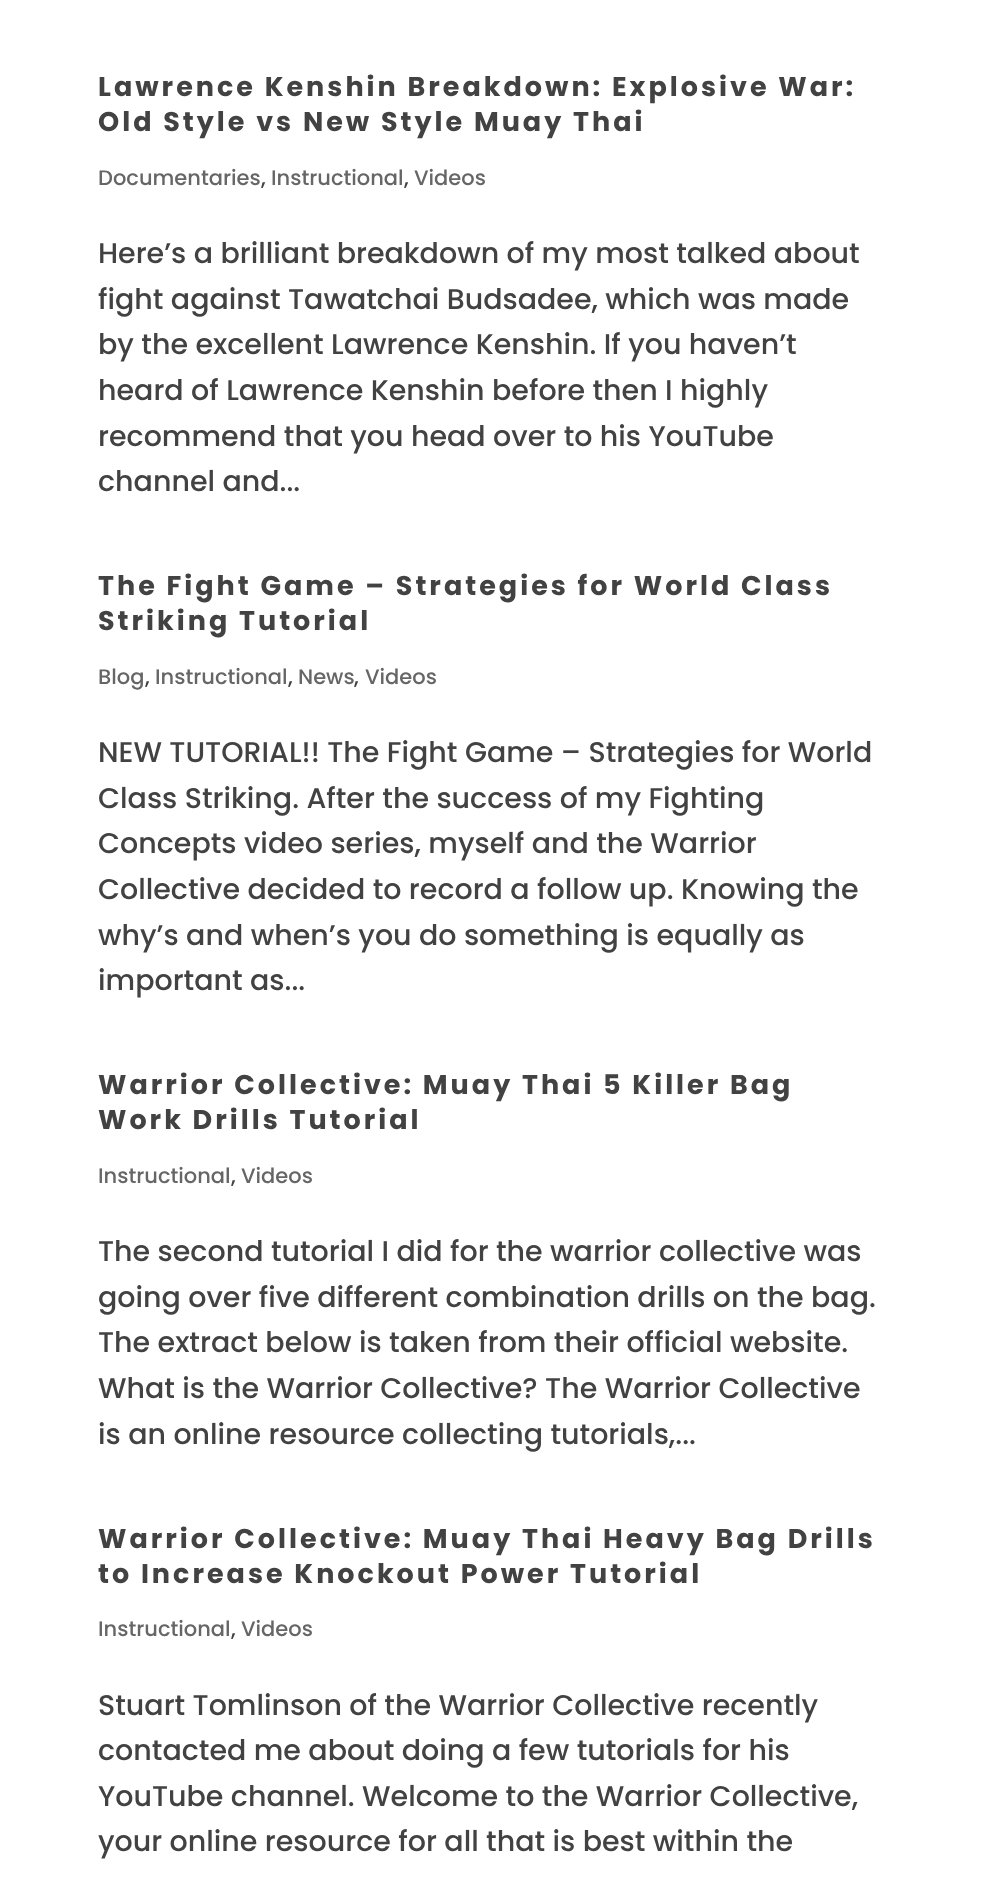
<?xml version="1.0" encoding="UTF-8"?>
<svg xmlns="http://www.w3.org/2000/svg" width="982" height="1883">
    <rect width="100%" height="100%" fill="#FFFFFF"/>
    <text font-family="Poppins" font-size="27" font-weight="700" letter-spacing="3" fill="#424242">
        <tspan x="98" y="96">Lawrence Kenshin Breakdown: Explosive War:</tspan>
        <tspan x="98" y="131">Old Style vs New Style Muay Thai</tspan>
    </text>
    <text x="98" y="185" font-family="Poppins" font-size="21" font-weight="500" fill="#666666">Documentaries</text>
    <text x="261" y="185" font-family="Poppins" font-size="21" font-weight="500" fill="#424242">,</text>
    <text x="271" y="185" font-family="Poppins" font-size="21" font-weight="500" fill="#666666">Instructional</text>
    <text x="404" y="185" font-family="Poppins" font-size="21" font-weight="500" fill="#424242">,</text>
    <text x="414" y="185" font-family="Poppins" font-size="21" font-weight="500" fill="#666666">Videos</text>
    <text font-family="Poppins" font-size="28.5" font-weight="500" fill="#424242">
        <tspan x="98" y="263">Here’s a brilliant breakdown of my most talked about</tspan>
        <tspan x="98" y="309">fight against Tawatchai Budsadee, which was made</tspan>
        <tspan x="98" y="354">by the excellent Lawrence Kenshin. If you haven’t</tspan>
        <tspan x="98" y="400">heard of Lawrence Kenshin before then I highly</tspan>
        <tspan x="98" y="446">recommend that you head over to his YouTube</tspan>
        <tspan x="98" y="491">channel and...</tspan>
    </text>
    <text font-family="Poppins" font-size="27" font-weight="700" letter-spacing="3" fill="#424242">
        <tspan x="98" y="595">The Fight Game – Strategies for World Class</tspan>
        <tspan x="98" y="630">Striking Tutorial</tspan>
    </text>
    <text x="98" y="684" font-family="Poppins" font-size="21" font-weight="500" fill="#666666">Blog</text>
    <text x="145" y="684" font-family="Poppins" font-size="21" font-weight="500" fill="#424242">,</text>
    <text x="155" y="684" font-family="Poppins" font-size="21" font-weight="500" fill="#666666">Instructional</text>
    <text x="288" y="684" font-family="Poppins" font-size="21" font-weight="500" fill="#424242">,</text>
    <text x="298" y="684" font-family="Poppins" font-size="21" font-weight="500" fill="#666666">News</text>
    <text x="354" y="684" font-family="Poppins" font-size="21" font-weight="500" fill="#424242">,</text>
    <text x="365" y="684" font-family="Poppins" font-size="21" font-weight="500" fill="#666666">Videos</text>
    <text font-family="Poppins" font-size="28.5" font-weight="500" fill="#424242">
        <tspan x="98" y="762">NEW TUTORIAL!! The Fight Game – Strategies for World</tspan>
        <tspan x="98" y="808">Class Striking. After the success of my Fighting</tspan>
        <tspan x="98" y="853">Concepts video series, myself and the Warrior</tspan>
        <tspan x="98" y="899">Collective decided to record a follow up. Knowing the</tspan>
        <tspan x="98" y="945">why’s and when’s you do something is equally as</tspan>
        <tspan x="98" y="990">important as...</tspan>
    </text>
    <text font-family="Poppins" font-size="27" font-weight="700" letter-spacing="3" fill="#424242">
        <tspan x="98" y="1094">Warrior Collective: Muay Thai 5 Killer Bag</tspan>
        <tspan x="98" y="1129">Work Drills Tutorial</tspan>
    </text>
    <text x="98" y="1183" font-family="Poppins" font-size="21" font-weight="500" fill="#666666">Instructional</text>
    <text x="231" y="1183" font-family="Poppins" font-size="21" font-weight="500" fill="#424242">,</text>
    <text x="241" y="1183" font-family="Poppins" font-size="21" font-weight="500" fill="#666666">Videos</text>
    <text font-family="Poppins" font-size="28.5" font-weight="500" fill="#424242">
        <tspan x="98" y="1261">The second tutorial I did for the warrior collective was</tspan>
        <tspan x="98" y="1307">going over five different combination drills on the bag.</tspan>
        <tspan x="98" y="1352">The extract below is taken from their official website.</tspan>
        <tspan x="98" y="1398">What is the Warrior Collective? The Warrior Collective</tspan>
        <tspan x="98" y="1444">is an online resource collecting tutorials,...</tspan>
    </text>
    <text font-family="Poppins" font-size="27" font-weight="700" letter-spacing="3" fill="#424242">
        <tspan x="98" y="1548">Warrior Collective: Muay Thai Heavy Bag Drills</tspan>
        <tspan x="98" y="1583">to Increase Knockout Power Tutorial</tspan>
    </text>
    <text x="98" y="1636" font-family="Poppins" font-size="21" font-weight="500" fill="#666666">Instructional</text>
    <text x="231" y="1636" font-family="Poppins" font-size="21" font-weight="500" fill="#424242">,</text>
    <text x="241" y="1636" font-family="Poppins" font-size="21" font-weight="500" fill="#666666">Videos</text>
    <text font-family="Poppins" font-size="28.5" font-weight="500" fill="#424242">
        <tspan x="98" y="1715">Stuart Tomlinson of the Warrior Collective recently</tspan>
        <tspan x="98" y="1760">contacted me about doing a few tutorials for his</tspan>
        <tspan x="98" y="1806">YouTube channel. Welcome to the Warrior Collective,</tspan>
        <tspan x="98" y="1851">your online resource for all that is best within the</tspan>
    </text>
</svg>
